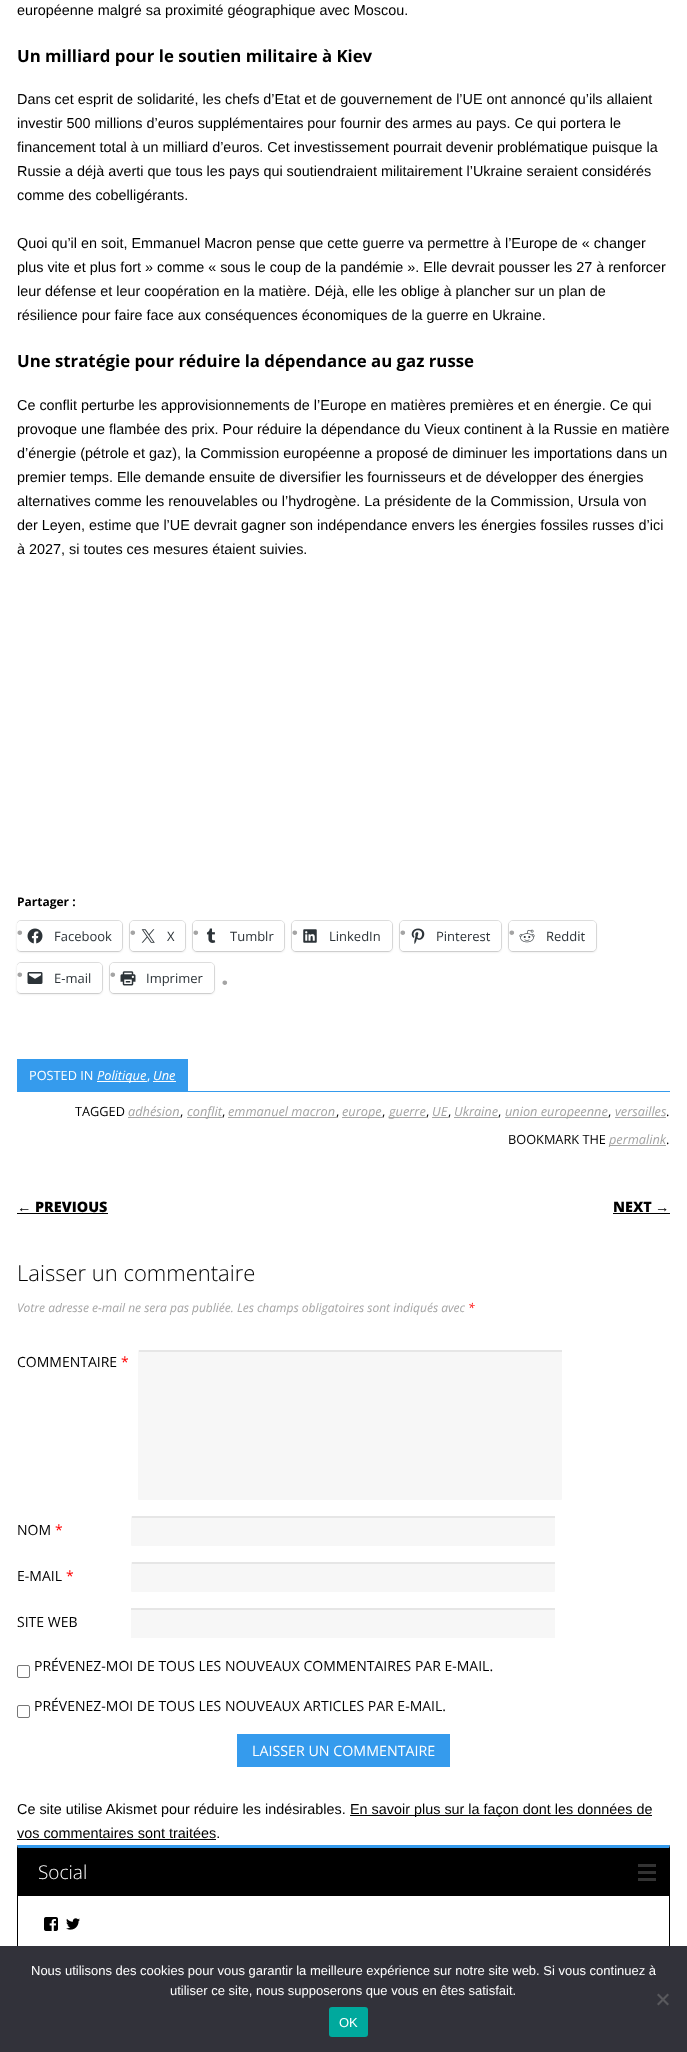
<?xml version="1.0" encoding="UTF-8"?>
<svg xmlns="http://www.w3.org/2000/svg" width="687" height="2052">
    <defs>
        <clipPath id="clip1"><rect x="17" y="0" width="653" height="1019"/></clipPath>
        <filter id="blur1" x="-50%" y="-200%" width="200%" height="500%"><feGaussianBlur stdDeviation="1"/></filter>
    </defs>
    <rect width="100%" height="100%" fill="#FFFFFF"/>
    <text x="17" y="15" font-family="Liberation Sans" font-size="14.4" fill="#000000">européenne malgré sa proximité géographique avec Moscou.</text>
    <text x="17" y="62" font-family="Open Sans" font-size="16.8" font-weight="700" fill="#000000">Un milliard pour le soutien militaire à Kiev</text>
    <text font-family="Liberation Sans" font-size="14.4" fill="#000000">
        <tspan x="17" y="104">Dans cet esprit de solidarité, les chefs d’Etat et de gouvernement de l’UE ont annoncé qu’ils allaient</tspan>
        <tspan x="17" y="128">investir 500 millions d’euros supplémentaires pour fournir des armes au pays. Ce qui portera le</tspan>
        <tspan x="17" y="152">financement total à un milliard d’euros. Cet investissement pourrait devenir problématique puisque la</tspan>
        <tspan x="17" y="176">Russie a déjà averti que tous les pays qui soutiendraient militairement l’Ukraine seraient considérés</tspan>
        <tspan x="17" y="200">comme des cobelligérants.</tspan>
    </text>
    <text font-family="Liberation Sans" font-size="14.4" fill="#000000">
        <tspan x="17" y="248">Quoi qu’il en soit, Emmanuel Macron pense que cette guerre va permettre à l’Europe de « changer</tspan>
        <tspan x="17" y="272">plus vite et plus fort » comme « sous le coup de la pandémie ». Elle devrait pousser les 27 à renforcer</tspan>
        <tspan x="17" y="296">leur défense et leur coopération en la matière. Déjà, elle les oblige à plancher sur un plan de</tspan>
        <tspan x="17" y="320">résilience pour faire face aux conséquences économiques de la guerre en Ukraine.</tspan>
    </text>
    <text x="17" y="367" font-family="Open Sans" font-size="16.8" font-weight="700" fill="#000000">Une stratégie pour réduire la dépendance au gaz russe</text>
    <text font-family="Liberation Sans" font-size="14.4" fill="#000000">
        <tspan x="17" y="410">Ce conflit perturbe les approvisionnements de l’Europe en matières premières et en énergie. Ce qui</tspan>
        <tspan x="17" y="434">provoque une flambée des prix. Pour réduire la dépendance du Vieux continent à la Russie en matière</tspan>
        <tspan x="17" y="458">d’énergie (pétrole et gaz), la Commission européenne a proposé de diminuer les importations dans un</tspan>
        <tspan x="17" y="482">premier temps. Elle demande ensuite de diversifier les fournisseurs et de développer des énergies</tspan>
        <tspan x="17" y="506">alternatives comme les renouvelables ou l’hydrogène. La présidente de la Commission, Ursula von</tspan>
        <tspan x="17" y="530">der Leyen, estime que l’UE devrait gagner son indépendance envers les énergies fossiles russes d’ici</tspan>
        <tspan x="17" y="554">à 2027, si toutes ces mesures étaient suivies.</tspan>
    </text>
    <text x="17" y="906" font-family="Open Sans" font-size="12" font-weight="700" fill="#000000">Partager :</text>
    <g clip-path="url(#clip1)">
        <rect x="16.5" y="920.5" width="106" height="31" rx="4.5" fill="none" stroke="#E0E0E0"/>
    </g>
    <rect x="17" y="922" width="105" height="30" rx="4" fill="#000000" fill-opacity="0.12" filter="url(#blur1)"/>
    <rect x="17" y="921" width="105" height="30" rx="4" fill="#FFFFFF"/>
    <text x="17" y="938" font-family="Liberation Sans" font-size="16" font-weight="700" fill="#A4A4A4">•</text>
    <image x="27" y="928" width="16" height="16" href="img_01.png"/>
    <text x="54" y="941" font-family="Open Sans" font-size="13" fill="#2C3338">Facebook</text>
    <rect x="129.5" y="920.5" width="56" height="31" rx="4.5" fill="none" stroke="#E0E0E0"/>
    <rect x="130" y="922" width="55" height="30" rx="4" fill="#000000" fill-opacity="0.12" filter="url(#blur1)"/>
    <rect x="130" y="921" width="55" height="30" rx="4" fill="#FFFFFF"/>
    <text x="130" y="938" font-family="Liberation Sans" font-size="16" font-weight="700" fill="#A4A4A4">•</text>
    <image x="141" y="929" width="14" height="14" href="img_02.png"/>
    <text x="167" y="941" font-family="Open Sans" font-size="13" fill="#2C3338">X</text>
    <rect x="192.5" y="920.5" width="92" height="31" rx="4.5" fill="none" stroke="#E0E0E0"/>
    <rect x="193" y="922" width="91" height="30" rx="4" fill="#000000" fill-opacity="0.12" filter="url(#blur1)"/>
    <rect x="193" y="921" width="91" height="30" rx="4" fill="#FFFFFF"/>
    <text x="193" y="938" font-family="Liberation Sans" font-size="16" font-weight="700" fill="#A4A4A4">•</text>
    <image x="206" y="928" width="10" height="15" href="img_03.png"/>
    <text x="230" y="941" font-family="Open Sans" font-size="13" fill="#2C3338">Tumblr</text>
    <rect x="291.5" y="920.5" width="101" height="31" rx="4.5" fill="none" stroke="#E0E0E0"/>
    <rect x="292" y="922" width="100" height="30" rx="4" fill="#000000" fill-opacity="0.12" filter="url(#blur1)"/>
    <rect x="292" y="921" width="100" height="30" rx="4" fill="#FFFFFF"/>
    <text x="292" y="938" font-family="Liberation Sans" font-size="16" font-weight="700" fill="#A4A4A4">•</text>
    <image x="303" y="929" width="14" height="14" href="img_04.png"/>
    <text x="329" y="941" font-family="Open Sans" font-size="13" fill="#2C3338">LinkedIn</text>
    <rect x="399.5" y="920.5" width="102" height="31" rx="4.5" fill="none" stroke="#E0E0E0"/>
    <rect x="400" y="922" width="101" height="30" rx="4" fill="#000000" fill-opacity="0.12" filter="url(#blur1)"/>
    <rect x="400" y="921" width="101" height="30" rx="4" fill="#FFFFFF"/>
    <text x="400" y="938" font-family="Liberation Sans" font-size="16" font-weight="700" fill="#A4A4A4">•</text>
    <image x="411" y="928" width="14" height="16" href="img_05.png"/>
    <text x="436" y="941" font-family="Open Sans" font-size="13" fill="#2C3338">Pinterest</text>
    <rect x="508.5" y="920.5" width="88" height="31" rx="4.5" fill="none" stroke="#E0E0E0"/>
    <rect x="509" y="922" width="87" height="30" rx="4" fill="#000000" fill-opacity="0.12" filter="url(#blur1)"/>
    <rect x="509" y="921" width="87" height="30" rx="4" fill="#FFFFFF"/>
    <text x="509" y="938" font-family="Liberation Sans" font-size="16" font-weight="700" fill="#A4A4A4">•</text>
    <image x="519" y="929" width="16" height="14" href="img_06.png"/>
    <text x="546" y="941" font-family="Open Sans" font-size="13" fill="#2C3338">Reddit</text>
    <g clip-path="url(#clip1)">
        <rect x="16.5" y="962.5" width="86" height="31" rx="4.5" fill="none" stroke="#E0E0E0"/>
    </g>
    <rect x="17" y="964" width="85" height="30" rx="4" fill="#000000" fill-opacity="0.12" filter="url(#blur1)"/>
    <rect x="17" y="963" width="85" height="30" rx="4" fill="#FFFFFF"/>
    <text x="17" y="980" font-family="Liberation Sans" font-size="16" font-weight="700" fill="#A4A4A4">•</text>
    <image x="27" y="972" width="16" height="12" href="img_07.png"/>
    <text x="54" y="983" font-family="Open Sans" font-size="13" fill="#2C3338">E-mail</text>
    <rect x="109.5" y="962.5" width="105" height="31" rx="4.5" fill="none" stroke="#E0E0E0"/>
    <rect x="110" y="964" width="104" height="30" rx="4" fill="#000000" fill-opacity="0.12" filter="url(#blur1)"/>
    <rect x="110" y="963" width="104" height="30" rx="4" fill="#FFFFFF"/>
    <text x="110" y="980" font-family="Liberation Sans" font-size="16" font-weight="700" fill="#A4A4A4">•</text>
    <image x="120" y="971" width="16" height="15" href="img_08.png"/>
    <text x="146" y="983" font-family="Open Sans" font-size="13" fill="#2C3338">Imprimer</text>
    <text x="222" y="988" font-family="Liberation Sans" font-size="16" font-weight="700" fill="#A4A4A4">•</text>
    <rect x="17" y="1059" width="171" height="32" fill="#359BED"/>
    <text x="29" y="1080" font-family="Open Sans" font-size="12.75" fill="#FFFFFF">POSTED IN</text>
    <rect x="97" y="1081" width="50" height="1" fill="#FFFFFF"/>
    <text x="97" y="1080" font-family="Open Sans" font-size="12.75" font-style="italic" fill="#FFFFFF">Politique</text>
    <text x="147" y="1080" font-family="Open Sans" font-size="12.75" fill="#FFFFFF">,</text>
    <text x="153" y="1080" font-family="Open Sans" font-size="12.75" font-style="italic" fill="#FFFFFF">Une</text>
    <rect x="153" y="1081" width="23" height="1" fill="#FFFFFF"/>
    <rect x="17" y="1091" width="653" height="1" fill="#359BED"/>
    <text x="75" y="1116" font-family="Open Sans" font-size="12.75" fill="#000000">TAGGED</text>
    <text x="128" y="1116" font-family="Open Sans" font-size="12.75" font-style="italic" fill="#A4A4A4">adhésion</text>
    <rect x="128" y="1117" width="52" height="1" fill="#A4A4A4"/>
    <text x="180" y="1116" font-family="Open Sans" font-size="12.75" fill="#000000">,</text>
    <rect x="187" y="1117" width="35" height="1" fill="#A4A4A4"/>
    <text x="187" y="1116" font-family="Open Sans" font-size="12.75" font-style="italic" fill="#A4A4A4">conflit</text>
    <text x="222" y="1116" font-family="Open Sans" font-size="12.75" fill="#000000">,</text>
    <text x="228" y="1116" font-family="Open Sans" font-size="12.75" font-style="italic" fill="#A4A4A4">emmanuel macron</text>
    <rect x="228" y="1117" width="108" height="1" fill="#A4A4A4"/>
    <text x="336" y="1116" font-family="Open Sans" font-size="12.75" fill="#000000">,</text>
    <rect x="342" y="1117" width="40" height="1" fill="#A4A4A4"/>
    <text x="342" y="1116" font-family="Open Sans" font-size="12.75" font-style="italic" fill="#A4A4A4">europe</text>
    <text x="382" y="1116" font-family="Open Sans" font-size="12.75" fill="#000000">,</text>
    <rect x="389" y="1117" width="37" height="1" fill="#A4A4A4"/>
    <text x="389" y="1116" font-family="Open Sans" font-size="12.75" font-style="italic" fill="#A4A4A4">guerre</text>
    <text x="426" y="1116" font-family="Open Sans" font-size="12.75" fill="#000000">,</text>
    <text x="432" y="1116" font-family="Open Sans" font-size="12.75" font-style="italic" fill="#A4A4A4">UE</text>
    <rect x="432" y="1117" width="16" height="1" fill="#A4A4A4"/>
    <text x="448" y="1116" font-family="Open Sans" font-size="12.75" fill="#000000">,</text>
    <text x="454" y="1116" font-family="Open Sans" font-size="12.75" font-style="italic" fill="#A4A4A4">Ukraine</text>
    <rect x="454" y="1117" width="44" height="1" fill="#A4A4A4"/>
    <text x="498" y="1116" font-family="Open Sans" font-size="12.75" fill="#000000">,</text>
    <rect x="505" y="1117" width="103" height="1" fill="#A4A4A4"/>
    <text x="505" y="1116" font-family="Open Sans" font-size="12.75" font-style="italic" fill="#A4A4A4">union europeenne</text>
    <text x="608" y="1116" font-family="Open Sans" font-size="12.75" fill="#000000">,</text>
    <text x="615" y="1116" font-family="Open Sans" font-size="12.75" font-style="italic" fill="#A4A4A4">versailles</text>
    <rect x="615" y="1117" width="51" height="1" fill="#A4A4A4"/>
    <text x="666" y="1116" font-family="Open Sans" font-size="12.75" fill="#000000">.</text>
    <text x="508" y="1144" font-family="Open Sans" font-size="12.75" fill="#000000">BOOKMARK THE</text>
    <rect x="609" y="1145" width="57" height="1" fill="#A4A4A4"/>
    <text x="609" y="1144" font-family="Open Sans" font-size="12.75" font-style="italic" fill="#A4A4A4">permalink</text>
    <text x="666" y="1144" font-family="Open Sans" font-size="12.75" fill="#000000">.</text>
    <text x="17" y="1212" font-family="Liberation Sans" font-size="14.4" font-weight="700" fill="#000000">←</text>
    <rect x="17" y="1213" width="91" height="1" fill="#000000"/>
    <text x="35" y="1212" font-family="Open Sans" font-size="14.4" font-weight="800" fill="#000000">PREVIOUS</text>
    <text x="613" y="1212" font-family="Open Sans" font-size="14.4" font-weight="800" fill="#000000">NEXT</text>
    <text x="655" y="1212" font-family="Liberation Sans" font-size="14.4" font-weight="700" fill="#000000">→</text>
    <rect x="613" y="1213" width="57" height="1" fill="#000000"/>
    <text x="17" y="1281" font-family="Open Sans" font-size="22" font-weight="300" fill="#000000">Laisser un commentaire</text>
    <text x="17" y="1312" font-family="Open Sans" font-size="12" font-style="italic" fill="#A4A4A4">Votre adresse e-mail ne sera pas publiée. Les champs obligatoires sont indiqués avec</text>
    <text x="468" y="1312" font-family="Open Sans" font-size="12" font-style="italic" fill="#FF0000">*</text>
    <text x="17" y="1367" font-family="Open Sans" font-size="14" fill="#000000">COMMENTAIRE</text>
    <text x="121" y="1367" font-family="Open Sans" font-size="14" fill="#FF0000">*</text>
    <rect x="138" y="1350" width="424" height="150" rx="1" fill="#F7F7F7"/>
    <rect x="139" y="1350" width="423" height="2" fill="#E6E6E6"/>
    <text x="17" y="1535" font-family="Open Sans" font-size="14" fill="#000000">NOM</text>
    <text x="55" y="1535" font-family="Open Sans" font-size="14" fill="#FF0000">*</text>
    <rect x="131" y="1516" width="424" height="30" rx="1" fill="#F7F7F7"/>
    <rect x="132" y="1516" width="423" height="2" fill="#E6E6E6"/>
    <text x="17" y="1581" font-family="Open Sans" font-size="14" fill="#000000">E-MAIL</text>
    <text x="66" y="1581" font-family="Open Sans" font-size="14" fill="#FF0000">*</text>
    <rect x="131" y="1562" width="424" height="30" rx="1" fill="#F7F7F7"/>
    <rect x="132" y="1562" width="423" height="2" fill="#E6E6E6"/>
    <text x="17" y="1627" font-family="Open Sans" font-size="14" fill="#000000">SITE WEB</text>
    <rect x="131" y="1610" width="424" height="28" fill="#F7F7F7"/>
    <rect x="131" y="1608" width="424" height="2" fill="#E6E6E6"/>
    <rect x="17.5" y="1665.5" width="12" height="12" rx="1.5" fill="none" stroke="#767676"/>
    <text x="34" y="1671" font-family="Open Sans" font-size="14" fill="#000000">PRÉVENEZ-MOI DE TOUS LES NOUVEAUX COMMENTAIRES PAR E-MAIL.</text>
    <rect x="17.5" y="1705.5" width="12" height="12" rx="1.5" fill="none" stroke="#767676"/>
    <text x="34" y="1711" font-family="Open Sans" font-size="14" fill="#000000">PRÉVENEZ-MOI DE TOUS LES NOUVEAUX ARTICLES PAR E-MAIL.</text>
    <rect x="237" y="1734" width="213" height="33" fill="#359BED"/>
    <text x="252" y="1756" font-family="Open Sans" font-size="14.25" fill="#FFFFFF">LAISSER UN COMMENTAIRE</text>
    <text x="17" y="1814" font-family="Liberation Sans" font-size="14.4" fill="#000000">Ce site utilise Akismet pour réduire les indésirables.</text>
    <rect x="350" y="1815" width="302" height="1" fill="#000000"/>
    <text x="350" y="1814" font-family="Liberation Sans" font-size="14.4" fill="#000000">En savoir plus sur la façon dont les données de</text>
    <text x="17" y="1838" font-family="Liberation Sans" font-size="14.4" fill="#000000">vos commentaires sont traitées.</text>
    <rect x="17" y="1839" width="199" height="1" fill="#000000"/>
    <path d="M 17 1845 H 670 L 669 1848 H 18 Z" fill="#359BED"/>
    <path d="M 670 1845 V 1966 L 669 1965 V 1848 Z" fill="#000000"/>
    <path d="M 17 1966 V 1845 L 18 1848 V 1965 Z" fill="#000000"/>
    <rect x="18" y="1848" width="651" height="48" fill="#000000"/>
    <image x="638" y="1864" width="18" height="17" href="img_09.png"/>
    <text x="38" y="1879" font-family="Open Sans" font-size="19" font-weight="300" fill="#FFFFFF">Social</text>
    <image x="44" y="1917" width="14" height="14" href="img_10.png"/>
    <image x="66" y="1918" width="14" height="12" href="img_11.png"/>
    <rect x="0" y="1946" width="687" height="106" fill="#32323A"/>
    <text x="31" y="1975" font-family="Liberation Sans" font-size="13" fill="#FFFFFF">Nous utilisons des cookies pour vous garantir la meilleure expérience sur notre site web. Si vous continuez à</text>
    <text x="170" y="1995" font-family="Liberation Sans" font-size="13" fill="#FFFFFF">utiliser ce site, nous supposerons que vous en êtes satisfait.</text>
    <path d="M 667.5 1993.5 L 669 1995 L 658.5 2005.5 L 657 2004 Z" fill="#59595D"/>
    <path d="M 657 1995 L 658.5 1993.5 L 669 2004 L 667.5 2005.5 Z" fill="#59595D"/>
    <rect x="329" y="2007" width="39" height="30" rx="3" fill="#00A99D"/>
    <text x="339" y="2027" font-family="Liberation Sans" font-size="13" fill="#FFFFFF">OK</text>
</svg>
